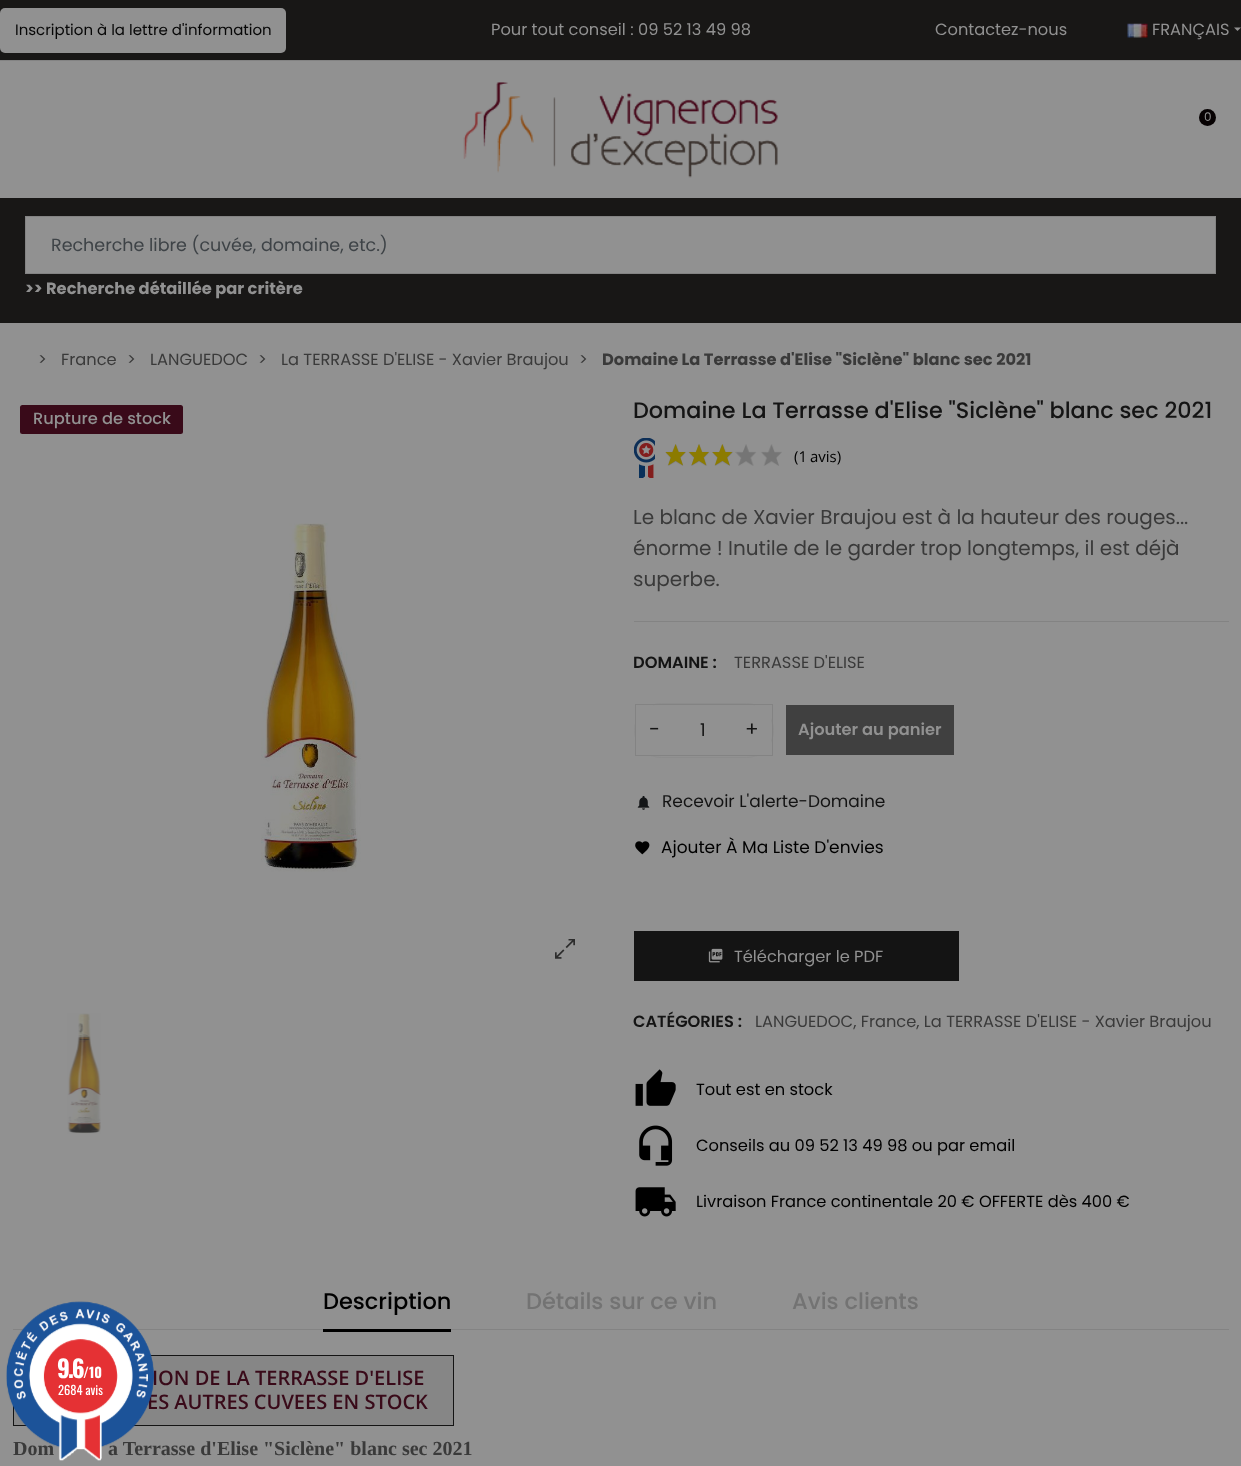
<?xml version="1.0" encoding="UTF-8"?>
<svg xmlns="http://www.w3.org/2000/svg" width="1241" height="1466">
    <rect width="100%" height="100%" fill="#919191"/>
    <rect x="0" y="0" width="1241" height="60" fill="#181716"/>
    <rect x="0" y="60" width="1241" height="1" fill="#838383"/>
    <rect x="0" y="8" width="286" height="45" rx="5" fill="#919191"/>
    <text x="15" y="35" font-family="Poppins" font-size="15" fill="#070707">Inscription à la lettre d'information</text>
    <text x="491" y="35" font-family="Poppins" font-size="16.25" fill="#919191">Pour tout conseil : 09 52 13 49 98</text>
    <text x="935" y="35" font-family="Poppins" font-size="16.25" fill="#919191">Contactez-nous</text>
    <image x="1127" y="23" width="21" height="15" href="img_01.png"/>
    <text x="1152" y="35" font-family="Poppins" font-size="16.25" fill="#919191">FRANÇAIS</text>
    <path d="M 1234 27.5 H 1241 L 1237.5 31 Z" fill="#919191"/>
    <image x="463" y="82" width="315" height="96" href="img_02.png"/>
    <circle cx="1207.5" cy="117.5" r="8.5" fill="#070203"/>
    <text x="1204" y="121" font-family="Poppins" font-size="12" fill="#919191">0</text>
    <rect x="0" y="198" width="1241" height="125" fill="#181716"/>
    <rect x="25.5" y="216.5" width="1190" height="57" fill="#919191" stroke="#838383"/>
    <text x="51" y="251" font-family="Poppins" font-size="17.5" fill="#3E4347">Recherche libre (cuvée, domaine, etc.)</text>
    <text x="25" y="294" font-family="Poppins" font-size="16.25" font-weight="700" fill="#919191">&gt;&gt; Recherche détaillée par critère</text>
    <text x="38" y="365" font-family="Poppins" font-size="16.25" fill="#3A3A3A">&gt;</text>
    <text x="61" y="365" font-family="Poppins" font-size="16.25" fill="#3A3A3A">France</text>
    <text x="127" y="365" font-family="Poppins" font-size="16.25" fill="#3A3A3A">&gt;</text>
    <text x="150" y="365" font-family="Poppins" font-size="16.25" fill="#3A3A3A">LANGUEDOC</text>
    <text x="258" y="365" font-family="Poppins" font-size="16.25" fill="#3A3A3A">&gt;</text>
    <text x="281" y="365" font-family="Poppins" font-size="16.25" fill="#3A3A3A">La TERRASSE D'ELISE - Xavier Braujou</text>
    <text x="579" y="365" font-family="Poppins" font-size="16.25" fill="#3A3A3A">&gt;</text>
    <text x="602" y="365" font-family="Poppins" font-size="16.25" font-weight="700" fill="#3A3A3A">Domaine La Terrasse d'Elise "Siclène" blanc sec 2021</text>
    <rect x="20" y="405" width="163" height="29" rx="2.5" fill="#390A19"/>
    <text x="33" y="424" font-family="Poppins" font-size="16.25" font-weight="500" fill="#919191">Rupture de stock</text>
    <image x="261" y="523" width="100" height="349" href="img_03.png"/>
    <image x="555" y="939" width="20" height="20" href="img_04.png"/>
    <image x="67" y="1013" width="34" height="121" href="img_05.png"/>
    <text x="633" y="418" font-family="Poppins" font-size="22.35" font-weight="500" fill="#141414">Domaine La Terrasse d'Elise "Siclène" blanc sec 2021</text>
    <image x="634" y="438" width="21" height="40" href="img_06.png"/>
    <image x="665" y="444" width="117" height="22" href="img_07.png"/>
    <image x="665" y="444" width="71" height="22" href="img_08.png"/>
    <text x="794" y="462" word-spacing="-1" font-family="Open Sans" font-size="15" fill="#000000">(1 avis)</text>
    <text font-family="Poppins" font-size="20" fill="#3A3A3A">
        <tspan x="633" y="524">Le blanc de Xavier Braujou est à la hauteur des rouges...</tspan>
        <tspan x="633" y="555">énorme ! Inutile de le garder trop longtemps, il est déjà</tspan>
        <tspan x="633" y="586">superbe.</tspan>
    </text>
    <rect x="634" y="621" width="595" height="1" fill="#838383"/>
    <text x="633" y="668" font-family="Poppins" font-size="16.25" font-weight="600" fill="#141414">DOMAINE :</text>
    <text x="734" y="668" font-family="Poppins" font-size="16.25" fill="#3A3A3A">TERRASSE D'ELISE</text>
    <rect x="634.5" y="703.5" width="139" height="54" rx="27" fill="none" stroke="#8C8C8C"/>
    <rect x="635.5" y="704.5" width="137" height="51" fill="none" stroke="#838383"/>
    <rect x="636" y="705" width="17" height="50" fill="#919191"/>
    <text x="649" y="736" font-family="Poppins" font-size="20" fill="#141414">-</text>
    <text x="700" y="736" font-family="Poppins" font-size="17.5" fill="#141414">1</text>
    <rect x="755" y="705" width="16" height="50" fill="#919191"/>
    <text x="745" y="736" font-family="Poppins" font-size="20" fill="#141414">+</text>
    <rect x="786" y="705" width="168" height="50" fill="#404040"/>
    <text x="798" y="735" font-family="Poppins" font-size="16.25" font-weight="600" fill="#919191">Ajouter au panier</text>
    <image x="637" y="796" width="13" height="14" href="img_09.png"/>
    <text x="662" y="807" font-family="Poppins" font-size="17" fill="#141414">Recevoir L'alerte-Domaine</text>
    <image x="635" y="841" width="15" height="14" href="img_10.png"/>
    <text x="661" y="853" font-family="Poppins" font-size="17" fill="#000000">Ajouter À Ma Liste D'envies</text>
    <rect x="634" y="931" width="325" height="50" fill="#141414"/>
    <image x="708" y="948" width="15" height="15" href="img_11.png"/>
    <text x="734" y="962" font-family="Poppins" font-size="16.25" fill="#919191">Télécharger le PDF</text>
    <text x="633" y="1027" font-family="Poppins" font-size="16.25" font-weight="600" fill="#141414">CATÉGORIES :</text>
    <text x="755" y="1027" font-family="Poppins" font-size="16.25" fill="#3A3A3A">LANGUEDOC, France, La TERRASSE D'ELISE - Xavier Braujou</text>
    <image x="635" y="1069" width="41" height="37" href="img_12.png"/>
    <text x="696" y="1095" font-family="Poppins" font-size="16.25" fill="#000000">Tout est en stock</text>
    <image x="639" y="1125" width="34" height="41" href="img_13.png"/>
    <text x="696" y="1151" font-family="Poppins" font-size="16.25" fill="#000000">Conseils au 09 52 13 49 98 ou par email</text>
    <image x="635" y="1187" width="41" height="30" href="img_14.png"/>
    <text x="696" y="1207" font-family="Poppins" font-size="16.25" fill="#000000">Livraison France continentale 20 € OFFERTE dès 400 €</text>
    <rect x="13" y="1329" width="1216" height="1" fill="#838383"/>
    <text x="323" y="1309" font-family="Poppins" font-size="22.5" font-weight="500" fill="#000000">Description</text>
    <rect x="323" y="1329" width="128" height="3" fill="#000000"/>
    <text x="526" y="1309" font-family="Poppins" font-size="22.5" font-weight="500" fill="#737373">Détails sur ce vin</text>
    <text x="792" y="1309" font-family="Poppins" font-size="22.5" font-weight="500" fill="#737373">Avis clients</text>
    <rect x="13.5" y="1355.5" width="440" height="70" fill="#868686" stroke="#141414"/>
    <text x="152" y="1385" font-family="Open Sans" font-size="20" font-weight="600" fill="#390A19">ION DE LA TERRASSE D'ELISE</text>
    <text x="147" y="1409" font-family="Open Sans" font-size="20" font-weight="600" fill="#390A19">ES AUTRES CUVEES EN STOCK</text>
    <text x="13" y="1455" font-family="Liberation Serif" font-size="20" font-weight="700" fill="#3A3A3A">Dom</text>
    <text x="108" y="1455" font-family="Liberation Serif" font-size="20" font-weight="700" fill="#3A3A3A">a Terrasse d'Elise "Siclène" blanc sec 2021</text>
    <image x="6" y="1301" width="148" height="160" href="img_15.png"/>
    <text x="57" y="1378" font-family="Oswald" font-size="24" font-weight="700" letter-spacing="-2" fill="#FFFFFF">9.6</text>
    <text x="83" y="1378" font-family="Oswald" font-size="14" font-weight="700" fill="#FFFFFF">/10</text>
    <text x="58" y="1395" font-family="Oswald" font-size="12.5" fill="#FFFFFF">2684 avis</text>
</svg>
